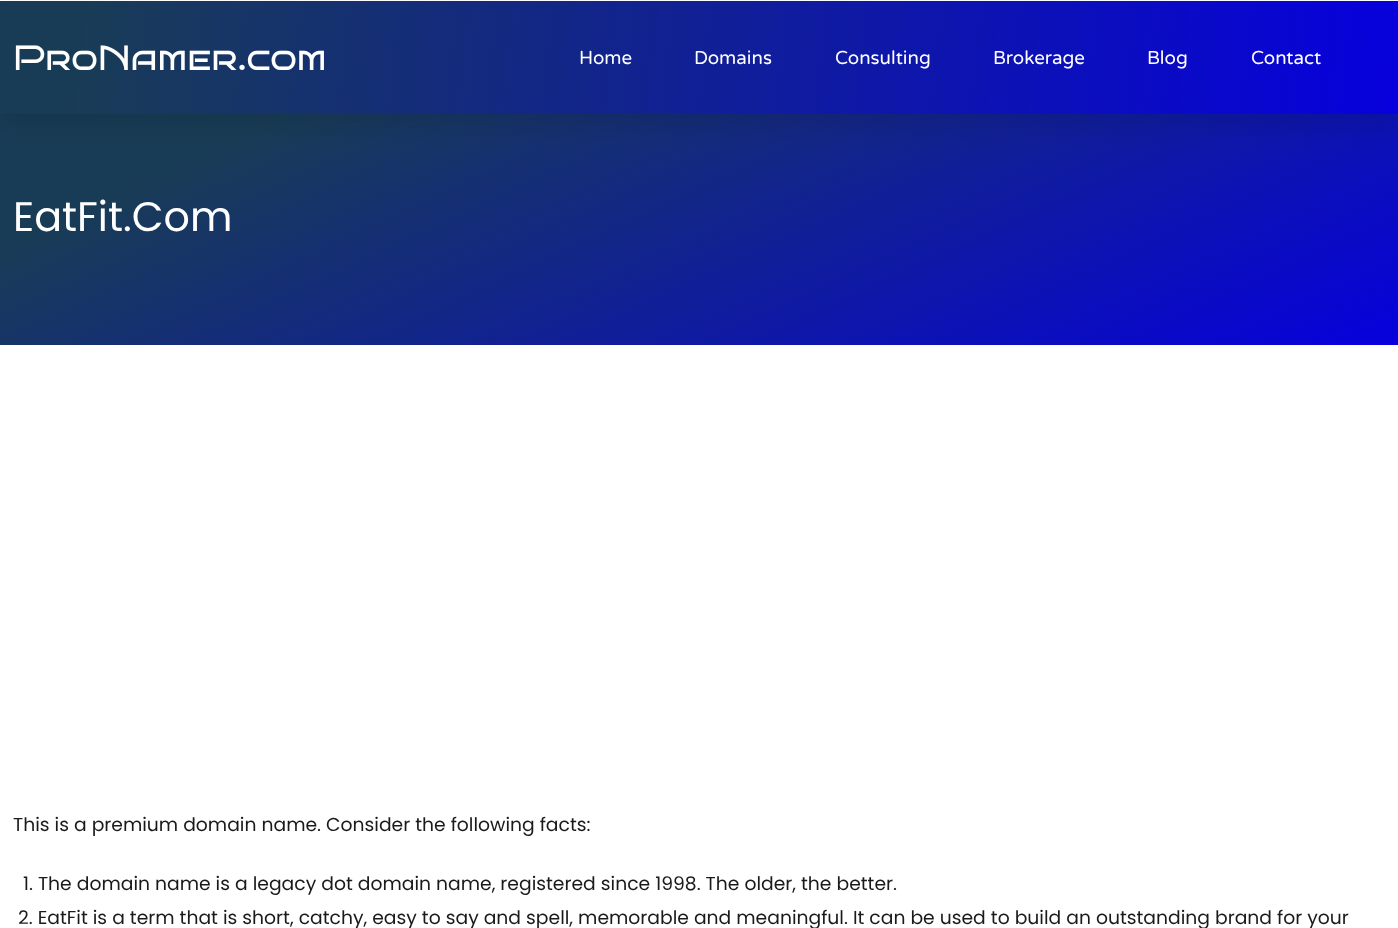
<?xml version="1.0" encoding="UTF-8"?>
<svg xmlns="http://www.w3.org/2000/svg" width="1398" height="928">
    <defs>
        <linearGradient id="g1" gradientUnits="userSpaceOnUse" x1="890" y1="582" x2="509" y2="-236"><stop offset="0" stop-color="#0700DD"/><stop offset="0.75" stop-color="#193C56"/></linearGradient>
        <filter id="blur1" x="-50%" y="-200%" width="200%" height="500%"><feGaussianBlur stdDeviation="12.5"/></filter>
        <linearGradient id="g2" gradientUnits="userSpaceOnUse" x1="1395" y1="143" x2="3.6" y2="-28"><stop offset="0" stop-color="#0700DD"/><stop offset="0.94" stop-color="#193C56"/></linearGradient>
    </defs>
    <rect width="100%" height="100%" fill="#FFFFFF"/>
    <rect x="0" y="114" width="1398" height="231" fill="url(#g1)"/>
    <rect x="0" y="14" width="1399" height="112" fill="#000000" fill-opacity="0.1" filter="url(#blur1)"/>
    <rect x="0" y="1" width="1398" height="113" fill="url(#g2)"/>
    <text x="13" y="70" font-family="Bruno Ace SC" font-size="35" fill="#FFFFFF">ProNamer.com</text>
    <text x="579" y="64" font-family="Varela Round" font-size="18.75" fill="#FFFFFF">Home</text>
    <text x="694" y="64" font-family="Varela Round" font-size="18.75" fill="#FFFFFF">Domains</text>
    <text x="835" y="64" font-family="Varela Round" font-size="18.75" fill="#FFFFFF">Consulting</text>
    <text x="993" y="64" font-family="Varela Round" font-size="18.75" fill="#FFFFFF">Brokerage</text>
    <text x="1147" y="64" font-family="Varela Round" font-size="18.75" fill="#FFFFFF">Blog</text>
    <text x="1251" y="64" font-family="Varela Round" font-size="18.75" fill="#FFFFFF">Contact</text>
    <text x="13" y="231" font-family="Poppins" font-size="41.25" fill="#FFFFFF">EatFit.Com</text>
    <text x="13" y="831" font-family="Poppins" font-size="18.75" fill="#1A1A1A">This is a premium domain name. Consider the following facts:</text>
    <text x="23" y="890" font-family="Poppins" font-size="18.75" fill="#1A1A1A">1. The domain name is a legacy dot domain name, registered since 1998. The older, the better.</text>
    <text x="18" y="924" font-family="Poppins" font-size="18.75" fill="#1A1A1A">2. EatFit is a term that is short, catchy, easy to say and spell, memorable and meaningful. It can be used to build an outstanding brand for your</text>
</svg>
